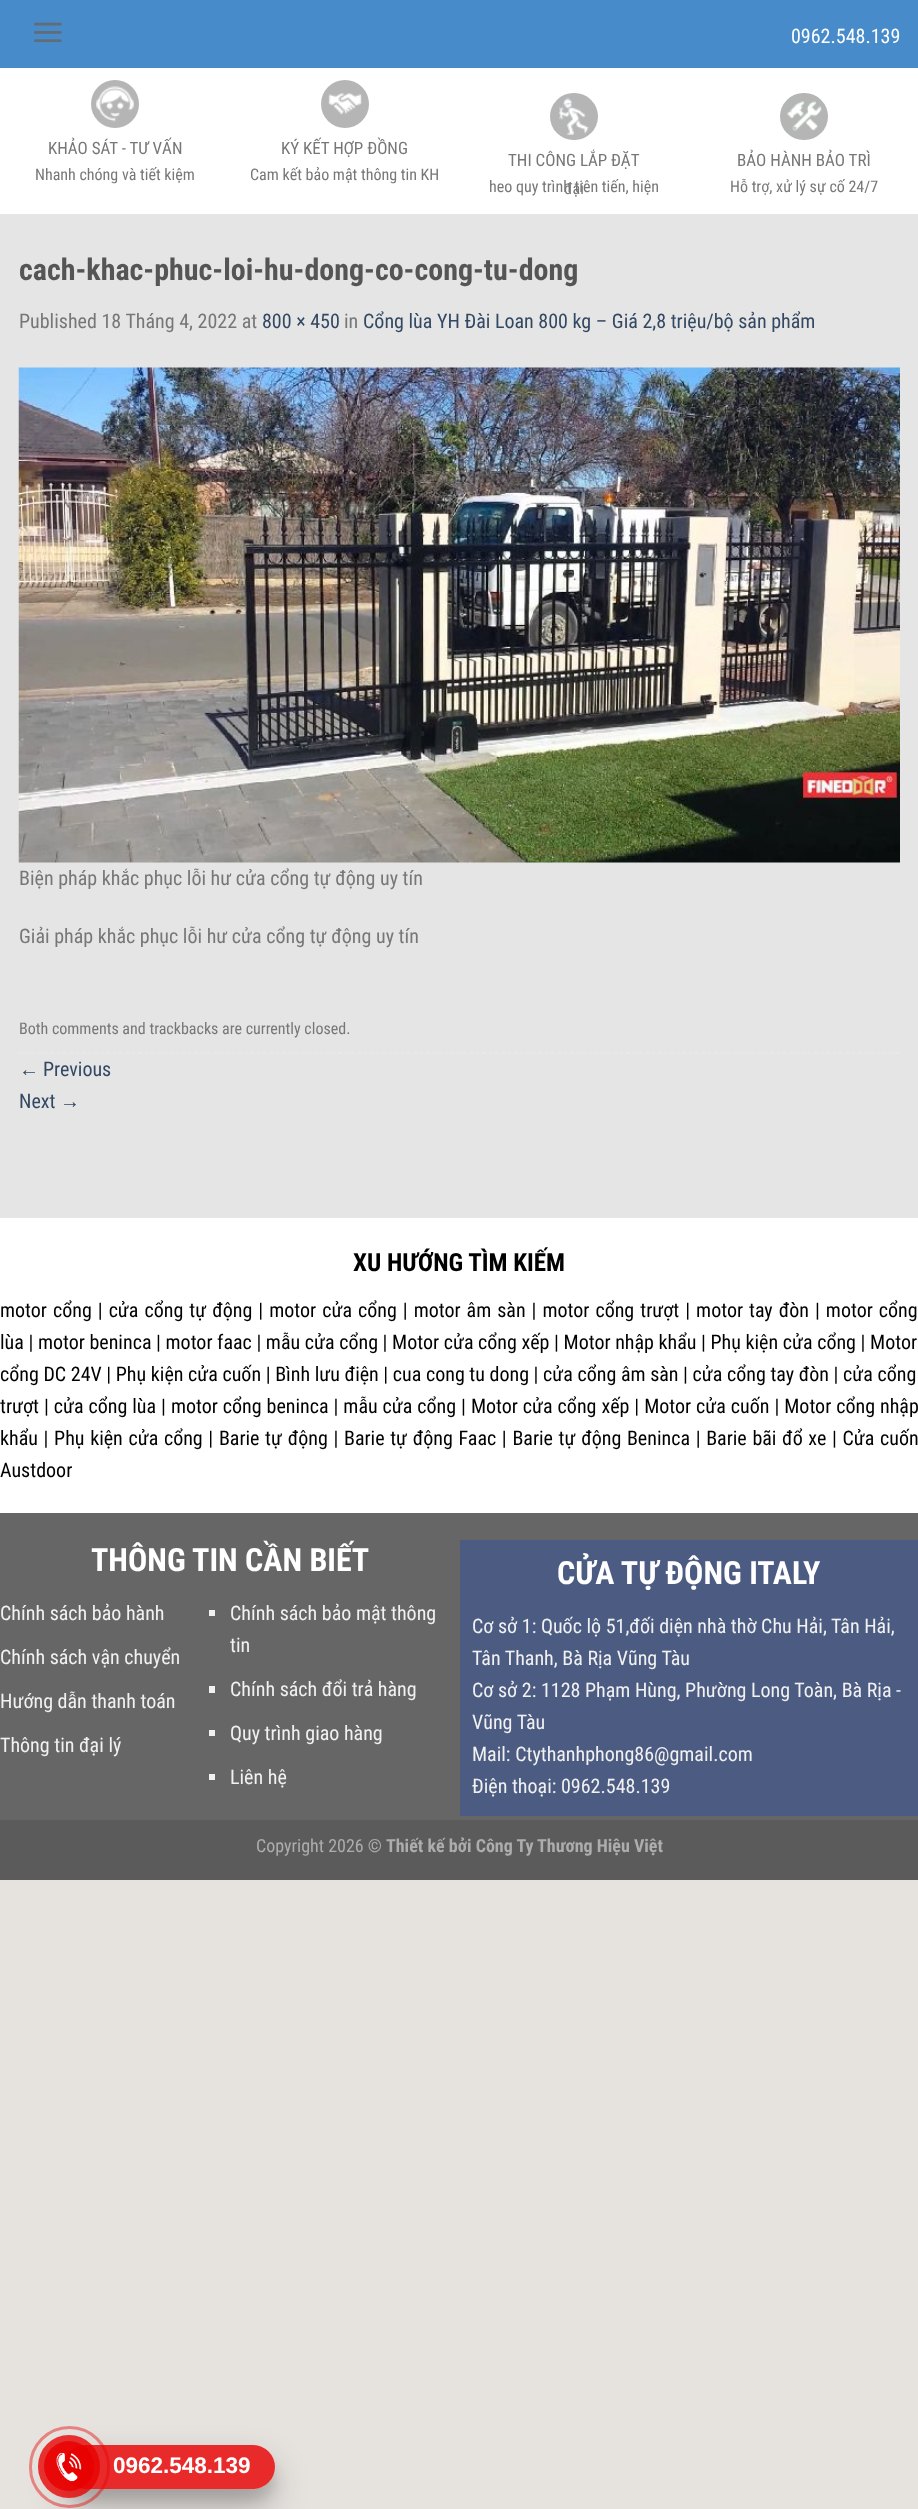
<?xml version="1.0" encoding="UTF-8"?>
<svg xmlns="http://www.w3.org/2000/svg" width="918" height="2509">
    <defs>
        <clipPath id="clip1"><path d="M 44 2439 H 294 V 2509 H 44 Z M 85 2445 H 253 C 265 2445 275 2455 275 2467 C 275 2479 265 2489 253 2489 H 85 C 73 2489 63 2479 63 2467 C 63 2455 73 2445 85 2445 Z" clip-rule="evenodd"/></clipPath>
        <filter id="blur1" x="-50%" y="-200%" width="200%" height="500%"><feGaussianBlur stdDeviation="6"/></filter>
        <clipPath id="clip2"><path d="M 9 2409 H 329 V 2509 H 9 Z M 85 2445 H 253 C 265 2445 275 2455 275 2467 C 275 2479 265 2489 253 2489 H 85 C 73 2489 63 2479 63 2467 C 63 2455 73 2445 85 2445 Z" clip-rule="evenodd"/></clipPath>
        <filter id="blur2" x="-50%" y="-200%" width="200%" height="500%"><feGaussianBlur stdDeviation="17.5"/></filter>
    </defs>
    <rect width="100%" height="100%" fill="#E6E2DE"/>
    <rect x="0" y="68" width="918" height="1445" fill="#FFFFFF"/>
    <rect x="0" y="0" width="918" height="68" fill="#478BCA"/>
    <image x="34" y="22" width="28" height="21" href="img_01.png"/>
    <text x="791" y="43" font-family="Roboto Condensed" font-size="20" fill="#FFFFFF">0962.548.139</text>
    <circle cx="115" cy="104" r="24" fill="#B5B5B5"/>
    <image x="96" y="86" width="38" height="36" href="img_02.png"/>
    <text x="48" y="154" font-family="Roboto Condensed" font-size="17" fill="#777777">KHẢO SÁT - TƯ VẤN</text>
    <text x="35" y="180" font-family="Roboto Condensed" font-size="16" fill="#777777">Nhanh chóng và tiết kiệm</text>
    <circle cx="345" cy="104" r="24" fill="#B5B5B5"/>
    <image x="328" y="93" width="34" height="22" href="img_03.png"/>
    <text x="281" y="154" font-family="Roboto Condensed" font-size="17" fill="#777777">KÝ KẾT HỢP ĐỒNG</text>
    <text x="250" y="180" font-family="Roboto Condensed" font-size="16" fill="#777777">Cam kết bảo mật thông tin KH</text>
    <rect x="550" y="93" width="48" height="47" rx="23.5" fill="#B5B5B5"/>
    <image x="559" y="97" width="30" height="38" href="img_04.png"/>
    <text x="508" y="166" font-family="Roboto Condensed" font-size="17" fill="#777777">THI CÔNG LẮP ĐẶT</text>
    <text x="489" y="192" font-family="Roboto Condensed" font-size="16" fill="#777777">heo quy trình tiên tiến, hiện</text>
    <text x="564" y="194" font-family="Roboto Condensed" font-size="16" fill="#777777">đại</text>
    <rect x="780" y="93" width="48" height="47" rx="23.5" fill="#B5B5B5"/>
    <image x="786" y="101" width="36" height="30" href="img_05.png"/>
    <text x="737" y="166" font-family="Roboto Condensed" font-size="17" fill="#777777">BẢO HÀNH BẢO TRÌ</text>
    <text x="730" y="192" font-family="Roboto Condensed" font-size="16" fill="#777777">Hỗ trợ, xử lý sự cố 24/7</text>
    <rect x="0" y="214" width="918" height="1004" fill="#E5E5E5"/>
    <text x="19" y="280" font-family="Roboto Condensed" font-size="30" font-weight="700" fill="#555555">cach-khac-phuc-loi-hu-dong-co-cong-tu-dong</text>
    <text x="19" y="328" font-family="Roboto Condensed" font-size="20" fill="#777777">Published 18 Tháng 4, 2022 at</text>
    <text x="262" y="328" font-family="Roboto Condensed" font-size="20" fill="#334862">800 × 450</text>
    <text x="344" y="328" font-family="Roboto Condensed" font-size="20" fill="#777777">in</text>
    <text x="363" y="328" font-family="Roboto Condensed" font-size="20" fill="#334862">Cổng lùa YH Đài Loan 800 kg – Giá 2,8 triệu/bộ sản phẩm</text>
    <image x="18" y="367" width="882" height="496" href="img_06.png"/>
    <text x="19" y="885" font-family="Roboto Condensed" font-size="20" fill="#777777">Biện pháp khắc phục lỗi hư cửa cổng tự động uy tín</text>
    <text x="19" y="943" font-family="Roboto Condensed" font-size="20" fill="#777777">Giải pháp khắc phục lỗi hư cửa cổng tự động uy tín</text>
    <path d="M 19 1053 H 900" fill="none" stroke="#ECECEC" stroke-width="1.2" stroke-dasharray="3.75 2.51"/>
    <text x="19" y="1034" font-family="Roboto Condensed" font-size="16" fill="#777777">Both comments and trackbacks are currently closed.</text>
    <text x="19" y="1076" font-family="Liberation Sans" font-size="20" fill="#334862">←</text>
    <text x="43" y="1076" font-family="Roboto Condensed" font-size="20" fill="#334862">Previous</text>
    <text x="19" y="1108" font-family="Roboto Condensed" font-size="20" fill="#334862">Next</text>
    <text x="60" y="1108" font-family="Liberation Sans" font-size="20" fill="#334862">→</text>
    <text x="353" y="1271" font-family="Roboto Condensed" font-size="25" font-weight="700" fill="#000000">XU HƯỚNG TÌM KIẾM</text>
    <text font-family="Roboto Condensed" font-size="20" fill="#000000">
        <tspan x="0" y="1317" word-spacing="1.4">motor cổng | cửa cổng tự động | motor cửa cổng | motor âm sàn | motor cổng trượt | motor tay đòn | motor cổng</tspan>
        <tspan x="0" y="1349">lùa | motor beninca | motor faac | mẫu cửa cổng | Motor cửa cổng xếp | Motor nhập khẩu | Phụ kiện cửa cổng | Motor</tspan>
        <tspan x="0" y="1381">cổng DC 24V | Phụ kiện cửa cuốn | Bình lưu điện | cua cong tu dong | cửa cổng âm sàn | cửa cổng tay đòn | cửa cổng</tspan>
        <tspan x="0" y="1413" word-spacing="0.35">trượt | cửa cổng lùa | motor cổng beninca | mẫu cửa cổng | Motor cửa cổng xếp | Motor cửa cuốn | Motor cổng nhập</tspan>
        <tspan x="0" y="1445" word-spacing="1.05">khẩu | Phụ kiện cửa cổng | Barie tự động | Barie tự động Faac | Barie tự động Beninca | Barie bãi đổ xe | Cửa cuốn</tspan>
        <tspan x="0" y="1477">Austdoor</tspan>
    </text>
    <rect x="0" y="1513" width="918" height="307" fill="#666666"/>
    <text x="91" y="1571" font-family="Roboto Condensed" font-size="32" font-weight="700" fill="#FFFFFF">THÔNG TIN CẦN BIẾT</text>
    <text x="0" y="1620" font-family="Roboto Condensed" font-size="20" fill="#F1F1F1">Chính sách bảo hành</text>
    <text x="0" y="1664" font-family="Roboto Condensed" font-size="20" fill="#F1F1F1">Chính sách vận chuyển</text>
    <text x="0" y="1708" font-family="Roboto Condensed" font-size="20" fill="#F1F1F1">Hướng dẫn thanh toán</text>
    <text x="0" y="1752" font-family="Roboto Condensed" font-size="20" fill="#F1F1F1">Thông tin đại lý</text>
    <rect x="209" y="1610" width="6" height="6" fill="#F1F1F1"/>
    <text font-family="Roboto Condensed" font-size="20" fill="#F1F1F1">
        <tspan x="230" y="1620">Chính sách bảo mật thông</tspan>
        <tspan x="230" y="1652">tin</tspan>
    </text>
    <rect x="209" y="1686" width="6" height="7" fill="#F1F1F1"/>
    <text x="230" y="1696" font-family="Roboto Condensed" font-size="20" fill="#F1F1F1">Chính sách đổi trả hàng</text>
    <rect x="209" y="1730" width="6" height="6" fill="#F1F1F1"/>
    <text x="230" y="1740" font-family="Roboto Condensed" font-size="20" fill="#F1F1F1">Quy trình giao hàng</text>
    <rect x="209" y="1774" width="6" height="6" fill="#F1F1F1"/>
    <text x="230" y="1784" font-family="Roboto Condensed" font-size="20" fill="#F1F1F1">Liên hệ</text>
    <rect x="460" y="1540" width="458" height="276" fill="#4B5B81"/>
    <text x="557" y="1584" font-family="Roboto Condensed" font-size="32" font-weight="700" fill="#FFFFFF">CỬA TỰ ĐỘNG ITALY</text>
    <text font-family="Roboto Condensed" font-size="20" fill="#F1F1F1">
        <tspan x="472" y="1633">Cơ sở 1: Quốc lộ 51,đối diện nhà thờ Chu Hải, Tân Hải,</tspan>
        <tspan x="472" y="1665">Tân Thanh, Bà Rịa Vũng Tàu</tspan>
        <tspan x="472" y="1697">Cơ sở 2: 1128 Phạm Hùng, Phường Long Toàn, Bà Rịa -</tspan>
        <tspan x="472" y="1729">Vũng Tàu</tspan>
        <tspan x="472" y="1761">Mail: Ctythanhphong86@gmail.com</tspan>
        <tspan x="472" y="1793">Điện thoại: 0962.548.139</tspan>
    </text>
    <rect x="0" y="1820" width="918" height="60" fill="#5B5B5B"/>
    <text x="256" y="1852" font-family="Roboto Condensed" font-size="18" fill="#ADADAD">Copyright 2026 ©</text>
    <text x="386" y="1852" font-family="Roboto Condensed" font-size="18" font-weight="700" fill="#ADADAD">Thiết kế bởi Công Ty Thương Hiệu Việt</text>
    <g clip-path="url(#clip1)">
        <rect x="63" y="2458" width="212" height="43" rx="21.5" fill="#000000" fill-opacity="0.1" filter="url(#blur1)"/>
    </g>
    <g clip-path="url(#clip2)">
        <rect x="63" y="2463" width="212" height="43" rx="21.5" fill="#000000" fill-opacity="0.25" filter="url(#blur2)"/>
    </g>
    <rect x="63" y="2445" width="212" height="44" rx="22" fill="#E80000" fill-opacity="0.81"/>
    <rect x="30.5" y="2427.5" width="78" height="79" rx="39" fill="none" stroke="#E80000" stroke-opacity="0.42" stroke-width="3"/>
    <rect x="38" y="2435" width="62" height="63" rx="31" fill="#E80000" fill-opacity="0.79"/>
    <circle cx="69" cy="2466" r="25" fill="#E80000" fill-opacity="0.81"/>
    <image x="56" y="2453" width="26" height="29" href="img_07.png"/>
    <text x="113" y="2473" font-family="Liberation Sans" font-size="22.5" font-weight="700" fill="#FFFFFF">0962.548.139</text>
</svg>
